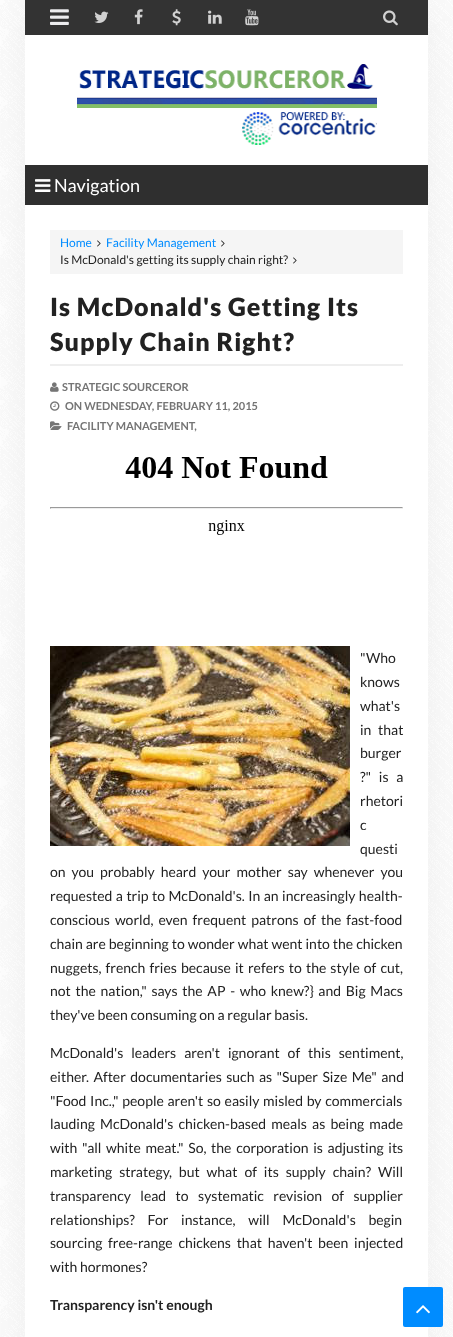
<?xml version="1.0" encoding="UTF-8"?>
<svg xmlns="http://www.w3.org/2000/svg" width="453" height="1337">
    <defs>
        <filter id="blur1" x="-50%" y="-200%" width="200%" height="500%"><feGaussianBlur stdDeviation="20"/></filter>
    </defs>
    <rect width="100%" height="100%" fill="#FFFFFF"/>
    <image x="0" y="0" width="453" height="1337" href="img_01.png"/>
    <rect x="25" y="0" width="403" height="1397" fill="#000000" fill-opacity="0.05" filter="url(#blur1)"/>
    <rect x="25" y="35" width="403" height="1302" fill="#FFFFFF"/>
    <rect x="25" y="0" width="403" height="35" fill="#333333"/>
    <image x="50" y="9" width="19" height="16" href="img_02.png"/>
    <image x="94" y="11" width="15" height="12" href="img_03.png"/>
    <image x="134" y="9" width="9" height="16" href="img_04.png"/>
    <image x="172" y="9" width="9" height="17" href="img_05.png"/>
    <image x="208" y="10" width="14" height="14" href="img_06.png"/>
    <image x="245" y="9" width="14" height="17" href="img_07.png"/>
    <image x="383" y="10" width="15" height="16" href="img_08.png"/>
    <image x="77" y="64" width="300" height="81" href="img_09.png"/>
    <rect x="25" y="165" width="403" height="40" fill="#2F2F2F"/>
    <image x="35" y="179" width="16" height="13" href="img_10.png"/>
    <text x="54" y="192" font-family="Lato" font-size="18" fill="#FFFFFF">Navigation</text>
    <rect x="50" y="230" width="353" height="44" fill="#F5F5F5"/>
    <text x="60" y="247" font-family="Lato" font-size="12" fill="#008CFF">Home</text>
    <image x="97" y="240" width="4" height="7" href="img_11.png"/>
    <text x="106" y="247" font-family="Lato" font-size="12" fill="#008CFF">Facility Management</text>
    <image x="221" y="240" width="4" height="7" href="img_11.png"/>
    <text x="60" y="264" font-family="Lato" font-size="12" fill="#222222">Is McDonald's getting its supply chain right?</text>
    <image x="293" y="257" width="4" height="7" href="img_11.png"/>
    <rect x="50" y="364" width="353" height="2" fill="#EEEEEE"/>
    <text font-family="Lato" font-size="25" font-weight="900" letter-spacing="1" fill="#222222">
        <tspan x="50" y="316">Is McDonald's Getting Its</tspan>
        <tspan x="50" y="351">Supply Chain Right?</tspan>
    </text>
    <image x="50" y="382" width="9" height="10" href="img_12.png"/>
    <text x="62" y="391" font-family="Lato" font-size="11" font-weight="700" fill="#757575">STRATEGIC SOURCEROR</text>
    <image x="50" y="401" width="10" height="10" href="img_13.png"/>
    <text x="65" y="410" font-family="Lato" font-size="11" font-weight="700" fill="#757575">ON WEDNESDAY, FEBRUARY 11, 2015</text>
    <image x="50" y="421" width="12" height="9" href="img_14.png"/>
    <text x="67" y="430" font-family="Lato" font-size="11" font-weight="700" fill="#757575">FACILITY MANAGEMENT,</text>
    <image x="50" y="456" width="353" height="79" href="img_15.png"/>
    <image x="50" y="646" width="300" height="200" href="img_16.png"/>
    <text font-family="Lato" font-size="14" fill="#222222">
        <tspan x="360" y="663">"Who</tspan>
        <tspan x="360" y="687">knows</tspan>
        <tspan x="360" y="711">what's</tspan>
        <tspan x="360" y="735" word-spacing="4">in that</tspan>
        <tspan x="360" y="758">burger</tspan>
        <tspan x="360" y="782" word-spacing="5">?" is a</tspan>
        <tspan x="360" y="806">rhetori</tspan>
        <tspan x="360" y="830">c</tspan>
        <tspan x="360" y="854">questi</tspan>
    </text>
    <text font-family="Lato" font-size="14" fill="#222222">
        <tspan x="50" y="877" word-spacing="3.25">on you probably heard your mother say whenever you</tspan>
        <tspan x="50" y="901" word-spacing="0.75">requested a trip to McDonald's. In an increasingly health-</tspan>
        <tspan x="50" y="925" word-spacing="2.25">conscious world, even frequent patrons of the fast-food</tspan>
        <tspan x="50" y="949" word-spacing="0.25">chain are beginning to wonder what went into the chicken</tspan>
        <tspan x="50" y="973" word-spacing="1.4">nuggets, french fries because it refers to the style of cut,</tspan>
        <tspan x="50" y="996" word-spacing="2">not the nation," says the AP - who knew?} and Big Macs</tspan>
        <tspan x="50" y="1020">they've been consuming on a regular basis.</tspan>
    </text>
    <text font-family="Lato" font-size="14" fill="#222222">
        <tspan x="50" y="1058" word-spacing="5.25">McDonald's leaders aren't ignorant of this sentiment,</tspan>
        <tspan x="50" y="1082" word-spacing="1.75">either. After documentaries such as "Super Size Me" and</tspan>
        <tspan x="50" y="1106" word-spacing="1">"Food Inc.," people aren't so easily misled by commercials</tspan>
        <tspan x="50" y="1129" word-spacing="2.5">lauding McDonald's chicken-based meals as being made</tspan>
        <tspan x="50" y="1153" word-spacing="2">with "all white meat." So, the corporation is adjusting its</tspan>
        <tspan x="50" y="1177" word-spacing="4.25">marketing strategy, but what of its supply chain? Will</tspan>
        <tspan x="50" y="1201" word-spacing="6.75">transparency lead to systematic revision of supplier</tspan>
        <tspan x="50" y="1225" word-spacing="10">relationships? For instance, will McDonald's begin</tspan>
        <tspan x="50" y="1248" word-spacing="3">sourcing free-range chickens that haven't been injected</tspan>
        <tspan x="50" y="1272">with hormones?</tspan>
    </text>
    <text x="50" y="1310" font-family="Lato" font-size="14" font-weight="700" fill="#222222">Transparency isn't enough</text>
    <rect x="403" y="1287" width="40" height="40" rx="2" fill="#008CFF"/>
    <image x="416" y="1305" width="14" height="9" href="img_17.png"/>
</svg>
